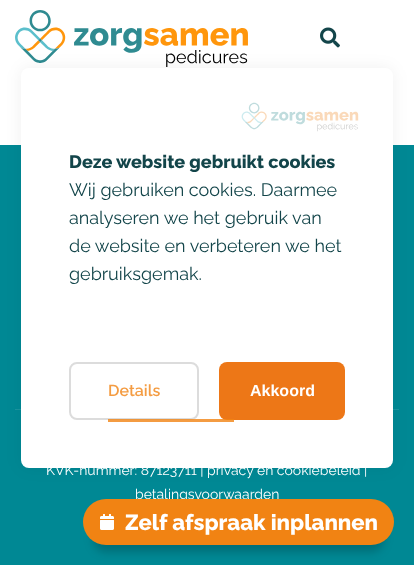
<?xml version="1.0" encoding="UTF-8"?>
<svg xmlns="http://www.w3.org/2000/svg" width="414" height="565">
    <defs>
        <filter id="blur1" x="-50%" y="-200%" width="200%" height="500%"><feGaussianBlur stdDeviation="8"/></filter>
        <filter id="blur2" x="-50%" y="-200%" width="200%" height="500%"><feGaussianBlur stdDeviation="5"/></filter>
    </defs>
    <rect width="100%" height="100%" fill="#008894"/>
    <rect x="0" y="0" width="414" height="145" fill="#FFFFFF"/>
    <image x="15" y="10" width="233" height="57" href="img_01.png"/>
    <image x="320" y="27" width="20" height="21" href="img_02.png"/>
    <rect x="15" y="409" width="384" height="1" fill="#1A949F"/>
    <rect x="21" y="68" width="372" height="400" rx="8" fill="#000000" fill-opacity="0.06" filter="url(#blur1)"/>
    <rect x="21" y="68" width="372" height="400" rx="8" fill="#FFFFFF"/>
    <image x="241" y="102" width="118" height="30" href="img_03.png"/>
    <text x="69" y="168" font-family="Raleway" font-size="18" font-weight="800" fill="#13454A">Deze website gebruikt cookies</text>
    <text font-family="Raleway" font-size="18" fill="#13454A">
        <tspan x="69" y="196">Wij gebruiken cookies. Daarmee</tspan>
        <tspan x="69" y="224">analyseren we het gebruik van</tspan>
        <tspan x="69" y="252">de website en verbeteren we het</tspan>
        <tspan x="69" y="280">gebruiksgemak.</tspan>
    </text>
    <rect x="70" y="363" width="128" height="56" rx="7" fill="none" stroke="#DCDCDC" stroke-width="2"/>
    <text x="108" y="396" font-family="Raleway" font-size="16" font-weight="600" fill="#F49C42">Details</text>
    <rect x="219" y="362" width="126" height="58" rx="8" fill="#ED7717"/>
    <rect x="108" y="419" width="126" height="3" fill="#F18313" fill-opacity="0.8"/>
    <text x="250" y="396" font-family="Liberation Sans" font-size="16" font-weight="700" fill="#FFFFFF">Akkoord</text>
    <text x="46" y="475" font-family="Raleway" font-size="14" fill="#FFFFFF">KVK-nummer: 87123711 | privacy en cookiebeleid</text>
    <text x="364" y="475" font-family="Raleway" font-size="14" fill="#FFFFFF">|</text>
    <text x="135" y="499" font-family="Raleway" font-size="14" fill="#FFFFFF">betalingsvoorwaarden</text>
    <rect x="93" y="526" width="291" height="26" rx="13" fill="#000000" fill-opacity="0.2" filter="url(#blur2)"/>
    <rect x="83" y="499" width="311" height="46" rx="23" fill="#F18313"/>
    <image x="100" y="514" width="14" height="16" href="img_04.png"/>
    <text x="125" y="530" font-family="Raleway" font-size="22" font-weight="800" fill="#FFFFFF">Zelf afspraak inplannen</text>
</svg>
